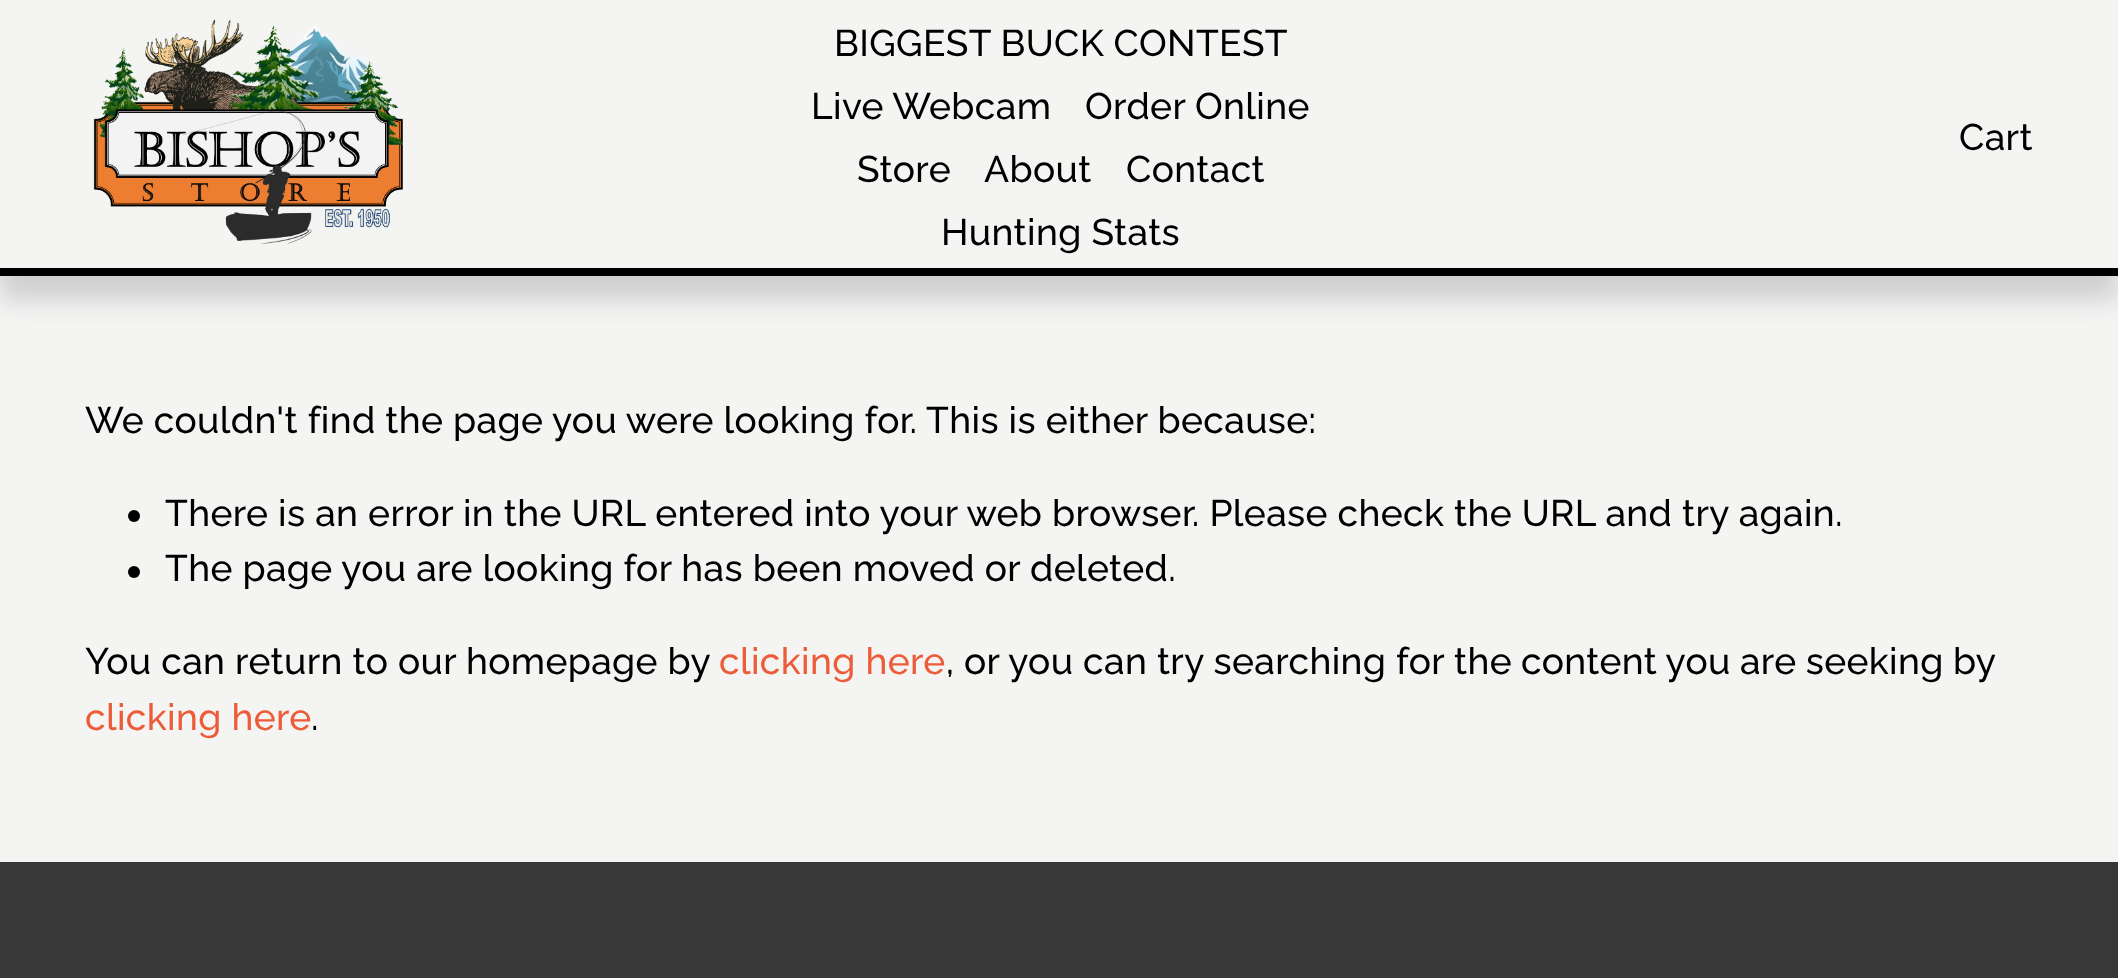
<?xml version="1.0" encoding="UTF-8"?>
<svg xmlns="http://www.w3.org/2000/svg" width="2118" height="978">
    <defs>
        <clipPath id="clip1"><rect x="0" y="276" width="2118" height="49"/></clipPath>
        <filter id="blur1" x="-50%" y="-200%" width="200%" height="500%"><feGaussianBlur stdDeviation="12"/></filter>
    </defs>
    <rect width="100%" height="100%" fill="#F4F4F3"/>
    <g clip-path="url(#clip1)">
        <rect x="0" y="24" width="2118" height="276" fill="#CFCFCF" filter="url(#blur1)"/>
    </g>
    <image x="93" y="19" width="310" height="225" href="img_01.png"/>
    <text x="834" y="56" font-family="Raleway" font-size="37.1" font-weight="500" letter-spacing="0.37" fill="#000000">BIGGEST BUCK CONTEST</text>
    <text x="811" y="119" font-family="Raleway" font-size="37.1" font-weight="500" letter-spacing="0.37" fill="#000000">Live Webcam</text>
    <text x="1085" y="119" font-family="Raleway" font-size="37.1" font-weight="500" letter-spacing="0.37" fill="#000000">Order Online</text>
    <text x="857" y="182" font-family="Raleway" font-size="37.1" font-weight="500" letter-spacing="0.37" fill="#000000">Store</text>
    <text x="984" y="182" font-family="Raleway" font-size="37.1" font-weight="500" letter-spacing="0.37" fill="#000000">About</text>
    <text x="1126" y="182" font-family="Raleway" font-size="37.1" font-weight="500" letter-spacing="0.37" fill="#000000">Contact</text>
    <text x="941" y="245" font-family="Raleway" font-size="37.1" font-weight="500" letter-spacing="0.37" fill="#000000">Hunting Stats</text>
    <text x="1959" y="150" font-family="Raleway" font-size="37.1" font-weight="500" letter-spacing="0.37" fill="#000000">Cart</text>
    <rect x="0" y="268" width="2118" height="8" fill="#000000"/>
    <text x="85" y="433" font-family="Raleway" font-size="37.1" font-weight="500" letter-spacing="0.37" fill="#000000">We couldn't find the page you were looking for. This is either because:</text>
    <circle cx="134" cy="516" r="6" fill="#000000"/>
    <text x="165" y="526" font-family="Raleway" font-size="37.1" font-weight="500" letter-spacing="0.37" fill="#000000">There is an error in the URL entered into your web browser. Please check the URL and try again.</text>
    <circle cx="134" cy="572" r="6" fill="#000000"/>
    <text x="165" y="581" font-family="Raleway" font-size="37.1" font-weight="500" letter-spacing="0.37" fill="#000000">The page you are looking for has been moved or deleted.</text>
    <text x="85" y="674" font-family="Raleway" font-size="37.1" font-weight="500" letter-spacing="0.37" fill="#000000">You can return to our homepage by</text>
    <text x="719" y="674" font-family="Raleway" font-size="37.1" font-weight="500" letter-spacing="0.37" fill="#EC5C39">clicking here</text>
    <text x="946" y="674" font-family="Raleway" font-size="37.1" font-weight="500" letter-spacing="0.37" fill="#000000">, or you can try searching for the</text>
    <text x="1521" y="674" word-spacing="-0.5" font-family="Raleway" font-size="37.1" font-weight="500" letter-spacing="0.37" fill="#000000">content you are seeking by</text>
    <text x="85" y="730" font-family="Raleway" font-size="37.1" font-weight="500" letter-spacing="0.37" fill="#EC5C39">clicking here</text>
    <text x="311" y="730" font-family="Raleway" font-size="37.1" font-weight="500" letter-spacing="0.37" fill="#000000">.</text>
    <rect x="0" y="862" width="2118" height="116" fill="#383838"/>
</svg>
